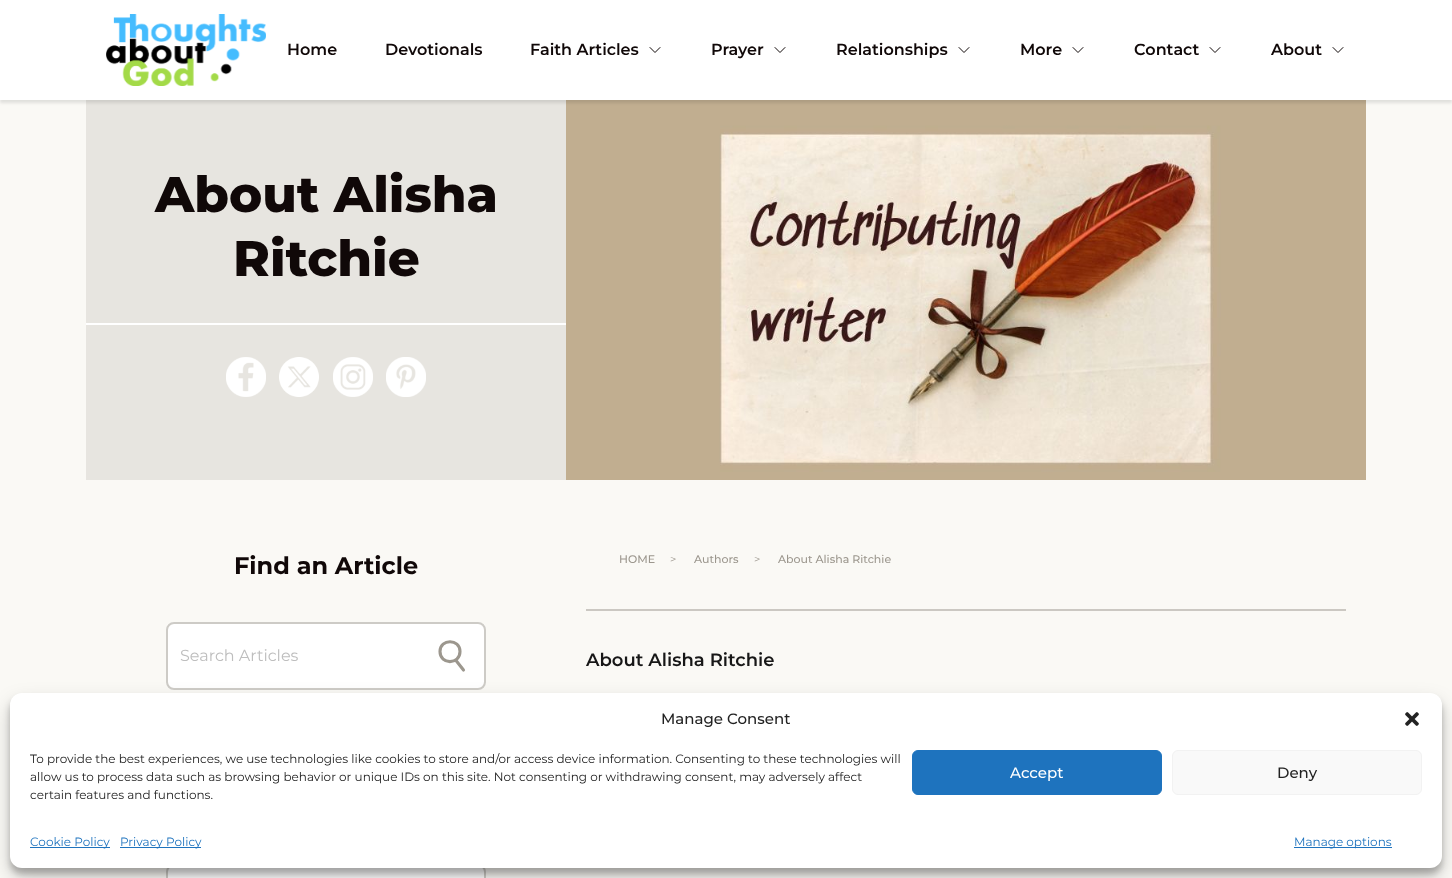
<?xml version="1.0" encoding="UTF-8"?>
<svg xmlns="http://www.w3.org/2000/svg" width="1452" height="878">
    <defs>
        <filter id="blur1" x="-50%" y="-200%" width="200%" height="500%"><feGaussianBlur stdDeviation="1.5"/></filter>
        <filter id="blur2" x="-50%" y="-200%" width="200%" height="500%"><feGaussianBlur stdDeviation="3"/></filter>
        <filter id="blur3" x="-50%" y="-200%" width="200%" height="500%"><feGaussianBlur stdDeviation="10"/></filter>
    </defs>
    <rect width="100%" height="100%" fill="#FAF9F5"/>
    <rect x="86" y="100" width="480" height="380" fill="#E7E5E0"/>
    <image x="566" y="100" width="800" height="380" href="img_06.png"/>
    <rect x="0" y="3" width="1452" height="100" fill="#000000" fill-opacity="0.1" filter="url(#blur1)"/>
    <rect x="0" y="0" width="1452" height="100" fill="#FFFFFF"/>
    <image x="106" y="14" width="160" height="72" href="img_01.png"/>
    <text x="287" y="55" font-family="Montserrat" font-size="16" font-weight="600" fill="#100808">Home</text>
    <text x="385" y="55" font-family="Montserrat" font-size="16" font-weight="600" fill="#100808">Devotionals</text>
    <text x="530" y="55" font-family="Montserrat" font-size="16" font-weight="600" fill="#100808">Faith Articles</text>
    <path d="M 660 47.5 L 655 52.5 L 650 47.5" fill="none" stroke="#100808" stroke-linecap="round" stroke-linejoin="round"/>
    <text x="711" y="55" font-family="Montserrat" font-size="16" font-weight="600" fill="#100808">Prayer</text>
    <path d="M 785 47.5 L 780 52.5 L 775 47.5" fill="none" stroke="#100808" stroke-linecap="round" stroke-linejoin="round"/>
    <text x="836" y="55" font-family="Montserrat" font-size="16" font-weight="600" fill="#100808">Relationships</text>
    <path d="M 969 47.5 L 964 52.5 L 959 47.5" fill="none" stroke="#100808" stroke-linecap="round" stroke-linejoin="round"/>
    <text x="1020" y="55" font-family="Montserrat" font-size="16" font-weight="600" fill="#100808">More</text>
    <path d="M 1083 47.5 L 1078 52.5 L 1073 47.5" fill="none" stroke="#100808" stroke-linecap="round" stroke-linejoin="round"/>
    <text x="1134" y="55" font-family="Montserrat" font-size="16" font-weight="600" fill="#100808">Contact</text>
    <path d="M 1220 47.5 L 1215 52.5 L 1210 47.5" fill="none" stroke="#100808" stroke-linecap="round" stroke-linejoin="round"/>
    <text x="1271" y="55" font-family="Montserrat" font-size="16" font-weight="600" fill="#100808">About</text>
    <path d="M 1343 47.5 L 1338 52.5 L 1333 47.5" fill="none" stroke="#100808" stroke-linecap="round" stroke-linejoin="round"/>
    <rect x="86" y="323" width="480" height="2" fill="#FFFFFF"/>
    <text x="155" y="212" font-family="Montserrat" font-size="50" font-weight="800" fill="#100808">About Alisha</text>
    <text x="233" y="276" font-family="Montserrat" font-size="50" font-weight="800" fill="#100808">Ritchie</text>
    <image x="226" y="357" width="40" height="40" href="img_02.png"/>
    <image x="279" y="357" width="40" height="40" href="img_03.png"/>
    <image x="333" y="357" width="40" height="40" href="img_04.png"/>
    <image x="386" y="357" width="40" height="40" href="img_05.png"/>
    <text x="234" y="574" font-family="Montserrat" font-size="24" font-weight="700" fill="#100808">Find an Article</text>
    <rect x="166" y="622" width="320" height="68" rx="8" fill="#FFFFFF"/>
    <rect x="167" y="623" width="318" height="66" rx="7" fill="none" stroke="#9C978E" stroke-opacity="0.5" stroke-width="2"/>
    <text x="180" y="661" font-family="Montserrat" font-size="16" fill="#BEBEBE">Search Articles</text>
    <path d="M 460 651.5 C 460 665 440 665 440 651.5 C 440 638.5 460 638.5 460 651.5 Z" fill="none" stroke="#9C978E" stroke-width="3.1"/>
    <path d="M 456 660.5 L 463.5 670" fill="none" stroke="#9C978E" stroke-width="3.1" stroke-linecap="round"/>
    <rect x="166" y="864" width="320" height="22" rx="8" fill="#FFFFFF"/>
    <rect x="167" y="865" width="318" height="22" rx="7" fill="none" stroke="#9C978E" stroke-opacity="0.5" stroke-width="2"/>
    <text x="619" y="563" font-family="Montserrat" font-size="11" font-weight="500" fill="#9C978E">HOME</text>
    <text x="670" y="563" font-family="Montserrat" font-size="11" fill="#9C978E">&gt;</text>
    <text x="694" y="563" font-family="Montserrat" font-size="11" font-weight="500" fill="#9C978E">Authors</text>
    <text x="754" y="563" font-family="Montserrat" font-size="11" fill="#9C978E">&gt;</text>
    <text x="778" y="563" font-family="Montserrat" font-size="11" font-weight="500" fill="#9C978E">About Alisha Ritchie</text>
    <rect x="586" y="609" width="760" height="2" fill="#CBC8C2"/>
    <text x="586" y="666" font-family="Montserrat" font-size="18" font-weight="600" fill="#171717">About Alisha Ritchie</text>
    <rect x="10" y="699" width="1432" height="175" rx="12" fill="#000000" fill-opacity="0.23" filter="url(#blur2)"/>
    <rect x="10" y="703" width="1432" height="175" rx="12" fill="#000000" fill-opacity="0.19" filter="url(#blur3)"/>
    <rect x="10" y="693" width="1432" height="175" rx="12" fill="#FFFFFF"/>
    <text x="661" y="724" font-family="Montserrat" font-size="15" font-weight="500" fill="#222222">Manage Consent</text>
    <image x="1405" y="712" width="14" height="14" href="img_07.png"/>
    <text font-family="Montserrat" font-size="12" fill="#222222">
        <tspan x="30" y="763">To provide the best experiences, we use technologies like cookies to store and/or access device information. Consenting to these technologies will</tspan>
        <tspan x="30" y="781">allow us to process data such as browsing behavior or unique IDs on this site. Not consenting or withdrawing consent, may adversely affect</tspan>
        <tspan x="30" y="799">certain features and functions.</tspan>
    </text>
    <rect x="912.5" y="750.5" width="249" height="44" rx="5.5" fill="#1E73BE" stroke="#1E73BE"/>
    <text x="1010" y="778" font-family="Montserrat" font-size="15" font-weight="500" fill="#FFFFFF">Accept</text>
    <rect x="1172.5" y="750.5" width="249" height="44" rx="5.5" fill="#F9F9F9" stroke="#F2F2F2"/>
    <text x="1277" y="778" font-family="Montserrat" font-size="15" font-weight="500" fill="#222222">Deny</text>
    <rect x="30" y="847" width="80" height="1" fill="#1E73BE"/>
    <text x="30" y="846" font-family="Montserrat" font-size="12" fill="#1E73BE">Cookie Policy</text>
    <rect x="120" y="847" width="81" height="1" fill="#1E73BE"/>
    <text x="120" y="846" font-family="Montserrat" font-size="12" fill="#1E73BE">Privacy Policy</text>
    <rect x="1294" y="847" width="98" height="1" fill="#1E73BE"/>
    <text x="1294" y="846" font-family="Montserrat" font-size="12" fill="#1E73BE">Manage options</text>
</svg>
